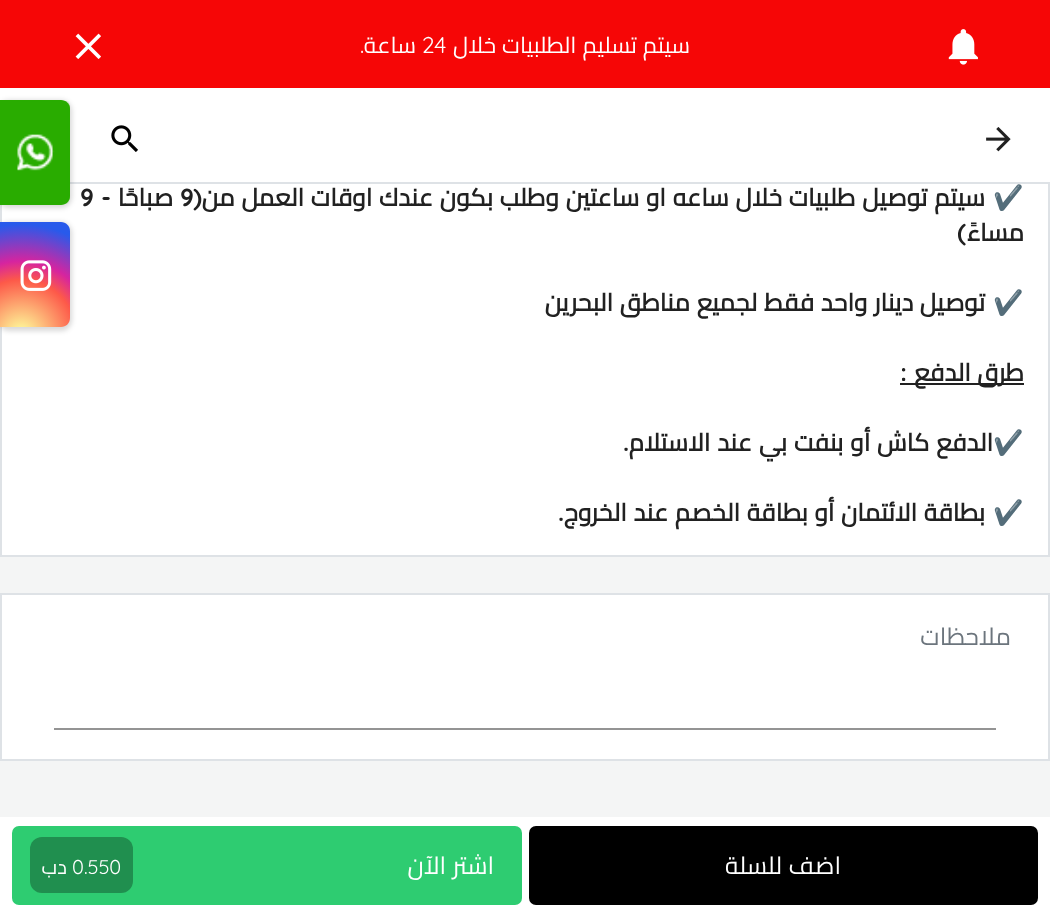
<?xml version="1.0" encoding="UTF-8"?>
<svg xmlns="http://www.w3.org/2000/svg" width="1050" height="922">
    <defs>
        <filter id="blur1" x="-50%" y="-200%" width="200%" height="500%"><feGaussianBlur stdDeviation="2.5"/></filter>
        <radialGradient id="g1" gradientUnits="userSpaceOnUse" cx="21" cy="335" r="123"><stop offset="0" stop-color="#FDF497"/><stop offset="0.05" stop-color="#FDF497"/><stop offset="0.45" stop-color="#FD5949"/><stop offset="0.6" stop-color="#D6249F"/><stop offset="0.9" stop-color="#285AEB"/></radialGradient>
    </defs>
    <rect width="100%" height="100%" fill="#F4F5F5"/>
    <rect x="2" y="184" width="1046" height="371" fill="#FFFFFF"/>
    <rect x="1" y="85" width="1048" height="471" fill="none" stroke="#DEE2E6" stroke-width="2"/>
    <rect x="0" y="0" width="1050" height="88" fill="#F60606"/>
    <image x="948" y="29" width="30" height="36" href="img_01.png"/>
    <text x="690" y="53" word-spacing="1" font-family="Cairo" font-size="22.75" direction="rtl" fill="#FFFFFF">سيتم تسليم الطلبيات خلال</text>
    <text x="422" y="53" font-family="'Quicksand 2'" font-size="22.75" font-weight="300" fill="#FFFFFF">24</text>
    <text x="416" y="53" font-family="Cairo" font-size="22.75" direction="rtl" fill="#FFFFFF">ساعة</text>
    <text x="364" y="53" font-family="'Quicksand 2'" font-size="22.75" font-weight="300" direction="rtl" fill="#FFFFFF">.</text>
    <image x="75" y="33" width="26" height="26" href="img_02.png"/>
    <rect x="0" y="88" width="1050" height="94" fill="#FFFFFF"/>
    <text x="1024" y="206" font-family="Noto Color Emoji" font-size="24.5" font-weight="700" direction="rtl" fill="#212121">✔️</text>
    <rect x="70" y="182" width="980" height="2" fill="#DEE2E6"/>
    <image x="986" y="127" width="25" height="25" href="img_03.png"/>
    <image x="111" y="125" width="27" height="27" href="img_04.png"/>
    <text x="985" y="206" word-spacing="1.4" font-family="Cairo" font-size="24.5" font-weight="700" direction="rtl" fill="#212121">سيتم توصيل طلبيات خلال ساعه او ساعتين وطلب بكون عندك اوقات العمل من</text>
    <text x="202" y="206" font-family="Quicksand" font-size="24.5" font-weight="300" direction="rtl" fill="#212121">(</text>
    <text x="180" y="206" font-family="Quicksand" font-size="24.5" font-weight="300" fill="#212121">9</text>
    <text x="173" y="206" font-family="Cairo" font-size="24.5" font-weight="700" direction="rtl" fill="#212121">صباحًا</text>
    <text x="111" y="206" font-family="Quicksand" font-size="24.5" font-weight="300" direction="rtl" fill="#212121">-</text>
    <text x="80" y="206" font-family="Quicksand" font-size="24.5" font-weight="300" fill="#212121">9</text>
    <text x="1024" y="241" font-family="Cairo" font-size="24.5" font-weight="700" direction="rtl" fill="#212121">مساءً</text>
    <text x="966" y="241" font-family="Quicksand" font-size="24.5" font-weight="300" direction="rtl" fill="#212121">)</text>
    <text x="1024" y="311" font-family="Noto Color Emoji" font-size="24.5" font-weight="700" direction="rtl" fill="#212121">✔️</text>
    <text x="985" y="311" word-spacing="1.25" font-family="Cairo" font-size="24.5" font-weight="700" direction="rtl" fill="#212121">توصيل دينار واحد فقط لجميع مناطق البحرين</text>
    <rect x="900" y="383" width="124" height="2" fill="#212121"/>
    <text x="1024" y="381" word-spacing="1" font-family="Cairo" font-size="24.5" font-weight="700" direction="rtl" fill="#212121">طرق الدفع</text>
    <text x="907" y="381" font-family="Quicksand" font-size="24.5" font-weight="300" direction="rtl" fill="#212121">:</text>
    <text x="1024" y="451" font-family="Noto Color Emoji" font-size="24.5" font-weight="700" direction="rtl" fill="#212121">✔️</text>
    <text x="993" y="451" word-spacing="1.5" font-family="Cairo" font-size="24.5" font-weight="700" direction="rtl" fill="#212121">الدفع كاش أو بنفت بي عند الاستلام</text>
    <text x="629" y="451" font-family="Quicksand" font-size="24.5" font-weight="300" direction="rtl" fill="#212121">.</text>
    <text x="1024" y="521" font-family="Noto Color Emoji" font-size="24.5" font-weight="700" direction="rtl" fill="#212121">✔️</text>
    <text x="985" y="521" word-spacing="1.25" font-family="Cairo" font-size="24.5" font-weight="700" direction="rtl" fill="#212121">بطاقة الائتمان أو بطاقة الخصم عند الخروج</text>
    <text x="564" y="521" font-family="Quicksand" font-size="24.5" font-weight="300" direction="rtl" fill="#212121">.</text>
    <rect x="1" y="594" width="1048" height="166" fill="#FFFFFF" stroke="#DEE2E6" stroke-width="2"/>
    <text x="1011" y="645" font-family="Cairo" font-size="24.5" direction="rtl" fill="#6C757D">ملاحظات</text>
    <rect x="54" y="728" width="942" height="2" fill="#949494"/>
    <rect x="0" y="817" width="1050" height="105" fill="#FFFFFF"/>
    <rect x="529" y="826" width="509" height="79" rx="7" fill="#000000"/>
    <text x="841" y="874" word-spacing="1" font-family="Cairo" font-size="24.5" direction="rtl" fill="#FFFFFF">اضف للسلة</text>
    <rect x="12" y="826" width="510" height="79" rx="7" fill="#2ECC71"/>
    <text x="494" y="874" word-spacing="1" font-family="Cairo" font-size="24.5" direction="rtl" fill="#FFFFFF">اشتر الآن</text>
    <rect x="30" y="837" width="103" height="56" rx="12" fill="#208F4F"/>
    <text x="72" y="874" font-family="'Quicksand 2'" font-size="20" font-weight="300" fill="#FFFFFF">0.550</text>
    <text x="67" y="874" font-family="Cairo" font-size="20" direction="rtl" fill="#FFFFFF">دب</text>
    <rect x="-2" y="100" width="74" height="108" rx="11" fill="#000000" fill-opacity="0.15" filter="url(#blur1)"/>
    <path d="M 0 100 H 61 C 66 100 70 104 70 109 V 196 C 70 201 66 205 61 205 H 0 Z" fill="#29AC00"/>
    <image x="17" y="101" width="53" height="103" href="img_05.png"/>
    <rect x="-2" y="222" width="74" height="109" rx="11" fill="#000000" fill-opacity="0.15" filter="url(#blur1)"/>
    <path d="M 0 222 H 61 C 66 222 70 226 70 231 V 318 C 70 323 66 327 61 327 H 0 Z" fill="url(#g1)"/>
    <image x="20" y="260" width="32" height="31" href="img_06.png"/>
</svg>
